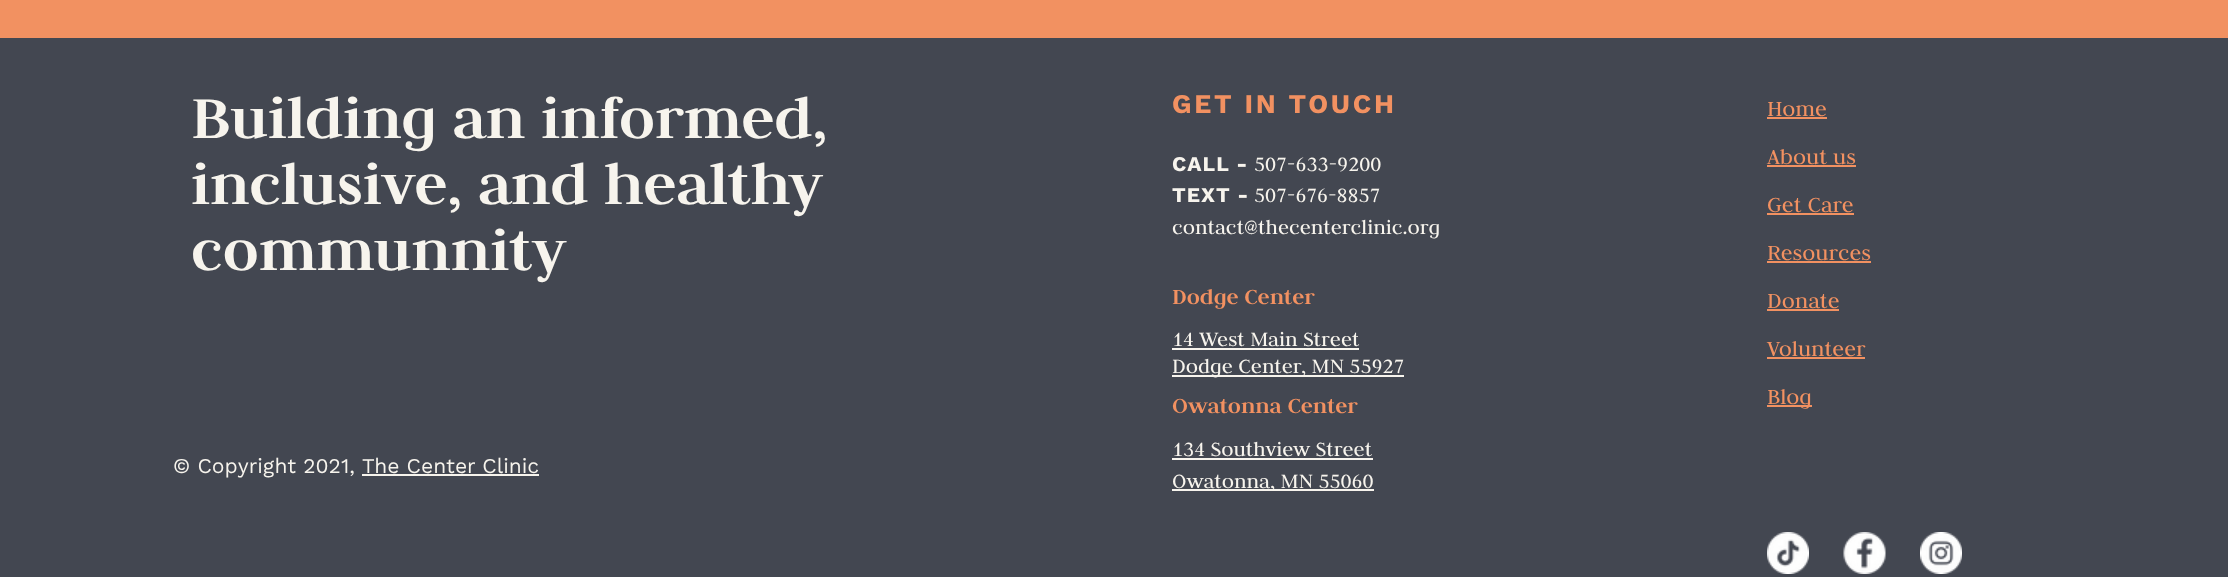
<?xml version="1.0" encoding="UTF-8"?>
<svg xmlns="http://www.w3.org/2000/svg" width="2228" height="577">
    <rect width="100%" height="100%" fill="#F29161"/>
    <rect x="0" y="38" width="2228" height="539" fill="#434751"/>
    <text font-family="Judson" font-size="66" font-weight="700" fill="#F7F4ED">
        <tspan x="191" y="138">Building an informed,</tspan>
        <tspan x="191" y="204">inclusive, and healthy</tspan>
        <tspan x="191" y="270">communnity</tspan>
    </text>
    <text x="173" y="473" font-family="Work Sans" font-size="21" fill="#F7F4ED">© Copyright 2021,</text>
    <text x="362" y="473" font-family="Work Sans" font-size="21" fill="#F7F4ED">The Center Clinic</text>
    <rect x="362" y="474" width="177" height="2" fill="#F7F4ED"/>
    <text x="1172" y="113" font-family="Work Sans" font-size="27" font-weight="700" letter-spacing="2.75" fill="#F29161">GET IN TOUCH</text>
    <text x="1172" y="171" font-family="Work Sans" font-size="21" font-weight="700" letter-spacing="1" fill="#F7F4ED">CALL -</text>
    <text x="1254" y="171" font-family="Judson" font-size="22.5" fill="#F7F4ED">507-633-9200</text>
    <text x="1172" y="202" font-family="Work Sans" font-size="21" font-weight="700" letter-spacing="1" fill="#F7F4ED">TEXT -</text>
    <text x="1254" y="202" font-family="Judson" font-size="22.5" fill="#F7F4ED">507-676-8857</text>
    <text x="1172" y="234" font-family="Judson" font-size="22.5" fill="#F7F4ED">contact@thecenterclinic.org</text>
    <text x="1172" y="304" font-family="Judson" font-size="24" font-weight="700" fill="#F29161">Dodge Center</text>
    <text x="1172" y="346" font-family="Judson" font-size="22.5" fill="#F7F4ED">14 West Main Street</text>
    <rect x="1172" y="348" width="187" height="2" fill="#F7F4ED"/>
    <rect x="1172" y="375" width="232" height="2" fill="#F7F4ED"/>
    <text x="1172" y="373" font-family="Judson" font-size="22.5" fill="#F7F4ED">Dodge Center, MN 55927</text>
    <text x="1172" y="413" font-family="Judson" font-size="24" font-weight="700" fill="#F29161">Owatonna Center</text>
    <text x="1172" y="456" font-family="Judson" font-size="22.5" fill="#F7F4ED">134 Southview Street</text>
    <rect x="1172" y="458" width="201" height="2" fill="#F7F4ED"/>
    <rect x="1172" y="489" width="202" height="2" fill="#F7F4ED"/>
    <text x="1172" y="488" font-family="Judson" font-size="22.5" fill="#F7F4ED">Owatonna, MN 55060</text>
    <text x="1767" y="116" font-family="Judson" font-size="24" fill="#F29161">Home</text>
    <rect x="1767" y="117" width="60" height="2" fill="#F29161"/>
    <text x="1767" y="164" font-family="Judson" font-size="24" fill="#F29161">About us</text>
    <rect x="1767" y="165" width="89" height="2" fill="#F29161"/>
    <text x="1767" y="212" font-family="Judson" font-size="24" fill="#F29161">Get Care</text>
    <rect x="1767" y="213" width="87" height="2" fill="#F29161"/>
    <text x="1767" y="260" font-family="Judson" font-size="24" fill="#F29161">Resources</text>
    <rect x="1767" y="261" width="104" height="2" fill="#F29161"/>
    <text x="1767" y="308" font-family="Judson" font-size="24" fill="#F29161">Donate</text>
    <rect x="1767" y="309" width="72" height="2" fill="#F29161"/>
    <text x="1767" y="356" font-family="Judson" font-size="24" fill="#F29161">Volunteer</text>
    <rect x="1767" y="357" width="98" height="2" fill="#F29161"/>
    <rect x="1767" y="405" width="45" height="2" fill="#F29161"/>
    <text x="1767" y="404" font-family="Judson" font-size="24" fill="#F29161">Blog</text>
    <image x="1767" y="532" width="42" height="42" href="img_01.png"/>
    <image x="1843" y="532" width="43" height="42" href="img_02.png"/>
    <image x="1920" y="532" width="42" height="42" href="img_03.png"/>
</svg>
